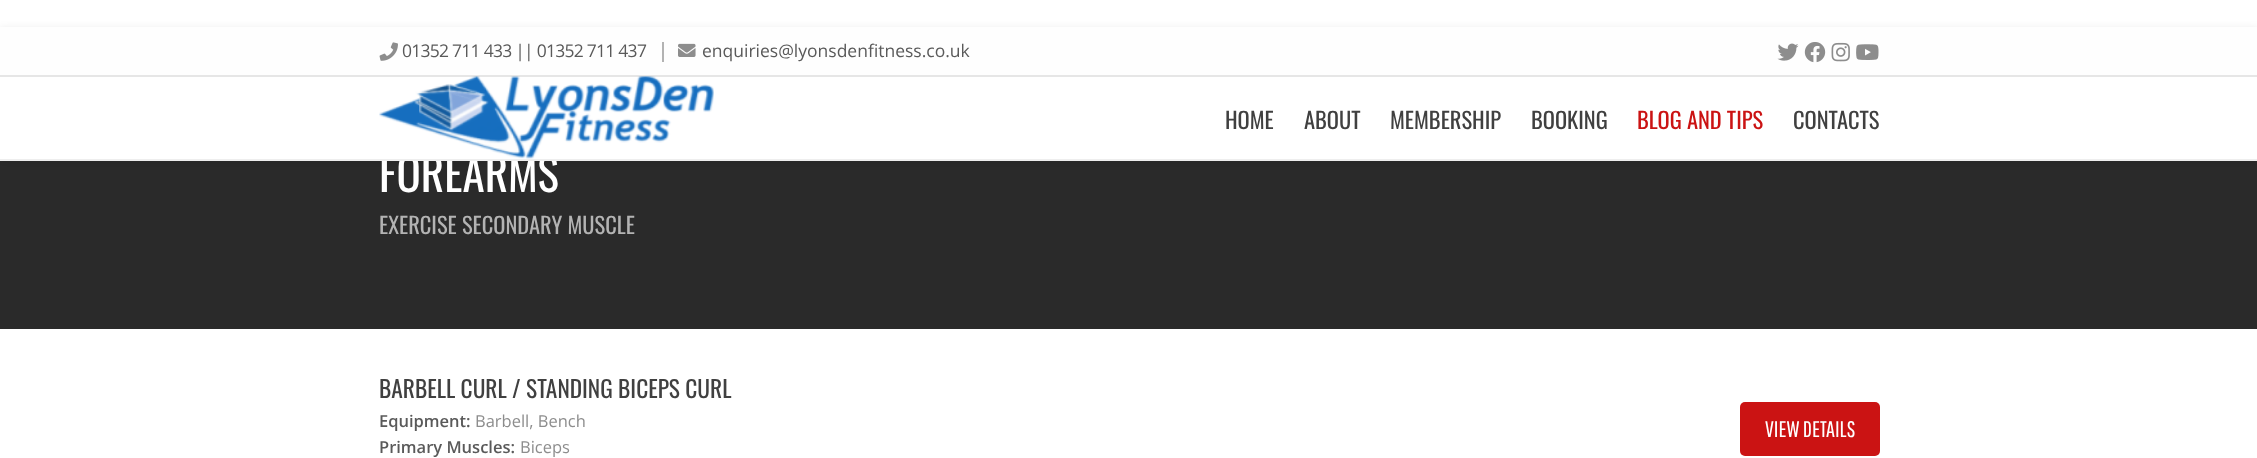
<?xml version="1.0" encoding="UTF-8"?>
<svg xmlns="http://www.w3.org/2000/svg" width="2257" height="458">
    <defs>
        <filter id="blur1" x="-50%" y="-200%" width="200%" height="500%"><feGaussianBlur stdDeviation="4"/></filter>
    </defs>
    <rect width="100%" height="100%" fill="#FFFFFF"/>
    <rect x="0" y="161" width="2257" height="168" fill="#2A2A2A"/>
    <rect x="0" y="29" width="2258" height="133" fill="#000000" fill-opacity="0.1" filter="url(#blur1)"/>
    <rect x="0" y="27" width="2257" height="48" fill="#FEFEFE"/>
    <rect x="0" y="75" width="2257" height="2" fill="#E6E6E6"/>
    <rect x="662" y="42" width="2" height="20" fill="#B3B3B3"/>
    <image x="379" y="42" width="19" height="19" href="img_01.png"/>
    <text x="402" y="57" font-family="Open Sans" font-size="17.5" letter-spacing="-0.75" fill="#5A5A5A">01352 711 433 || 01352 711 437</text>
    <image x="678" y="43" width="18" height="14" href="img_02.png"/>
    <text x="702" y="57" font-family="Open Sans" font-size="17.5" fill="#5A5A5A">enquiries@lyonsdenfitness.co.uk</text>
    <image x="1777" y="43" width="22" height="18" href="img_03.png"/>
    <image x="1804" y="42" width="22" height="21" href="img_04.png"/>
    <image x="1831" y="42" width="19" height="20" href="img_05.png"/>
    <image x="1856" y="44" width="23" height="16" href="img_06.png"/>
    <rect x="0" y="77" width="2257" height="82" fill="#FFFFFF"/>
    <text x="379" y="192" font-family="Oswald" font-size="45" fill="#FFFFFF">FOREARMS</text>
    <rect x="0" y="159" width="2257" height="2" fill="#EEEEEE"/>
    <image x="379" y="76" width="335" height="83" href="img_07.png"/>
    <text x="1225" y="129" font-family="Oswald" font-size="22.5" fill="#404040">HOME</text>
    <text x="1304" y="129" font-family="Oswald" font-size="22.5" fill="#404040">ABOUT</text>
    <text x="1390" y="129" font-family="Oswald" font-size="22.5" fill="#404040">MEMBERSHIP</text>
    <text x="1531" y="129" font-family="Oswald" font-size="22.5" fill="#404040">BOOKING</text>
    <text x="1637" y="129" font-family="Oswald" font-size="22.5" fill="#CB1313">BLOG AND TIPS</text>
    <text x="1793" y="129" font-family="Oswald" font-size="22.5" fill="#404040">CONTACTS</text>
    <text x="379" y="234" font-family="Oswald" font-size="22.5" fill="#B3B3B3">EXERCISE SECONDARY MUSCLE</text>
    <text x="379" y="398" font-family="Oswald" font-size="23.4" fill="#404040">BARBELL CURL / STANDING BICEPS CURL</text>
    <text x="379" y="427" font-family="Open Sans" font-size="16.5" font-weight="600" fill="#5A5A5A">Equipment:</text>
    <text x="475" y="427" font-family="Open Sans" font-size="16.5" fill="#8D8D8D">Barbell, Bench</text>
    <text x="379" y="453" font-family="Open Sans" font-size="16.5" font-weight="600" fill="#5A5A5A">Primary Muscles:</text>
    <text x="520" y="453" font-family="Open Sans" font-size="16.5" fill="#8D8D8D">Biceps</text>
    <rect x="1740" y="402" width="140" height="54" rx="5" fill="#CB1313"/>
    <text x="1765" y="437" font-family="Pathway Gothic One" font-size="22.5" fill="#FFFFFF">VIEW DETAILS</text>
</svg>
